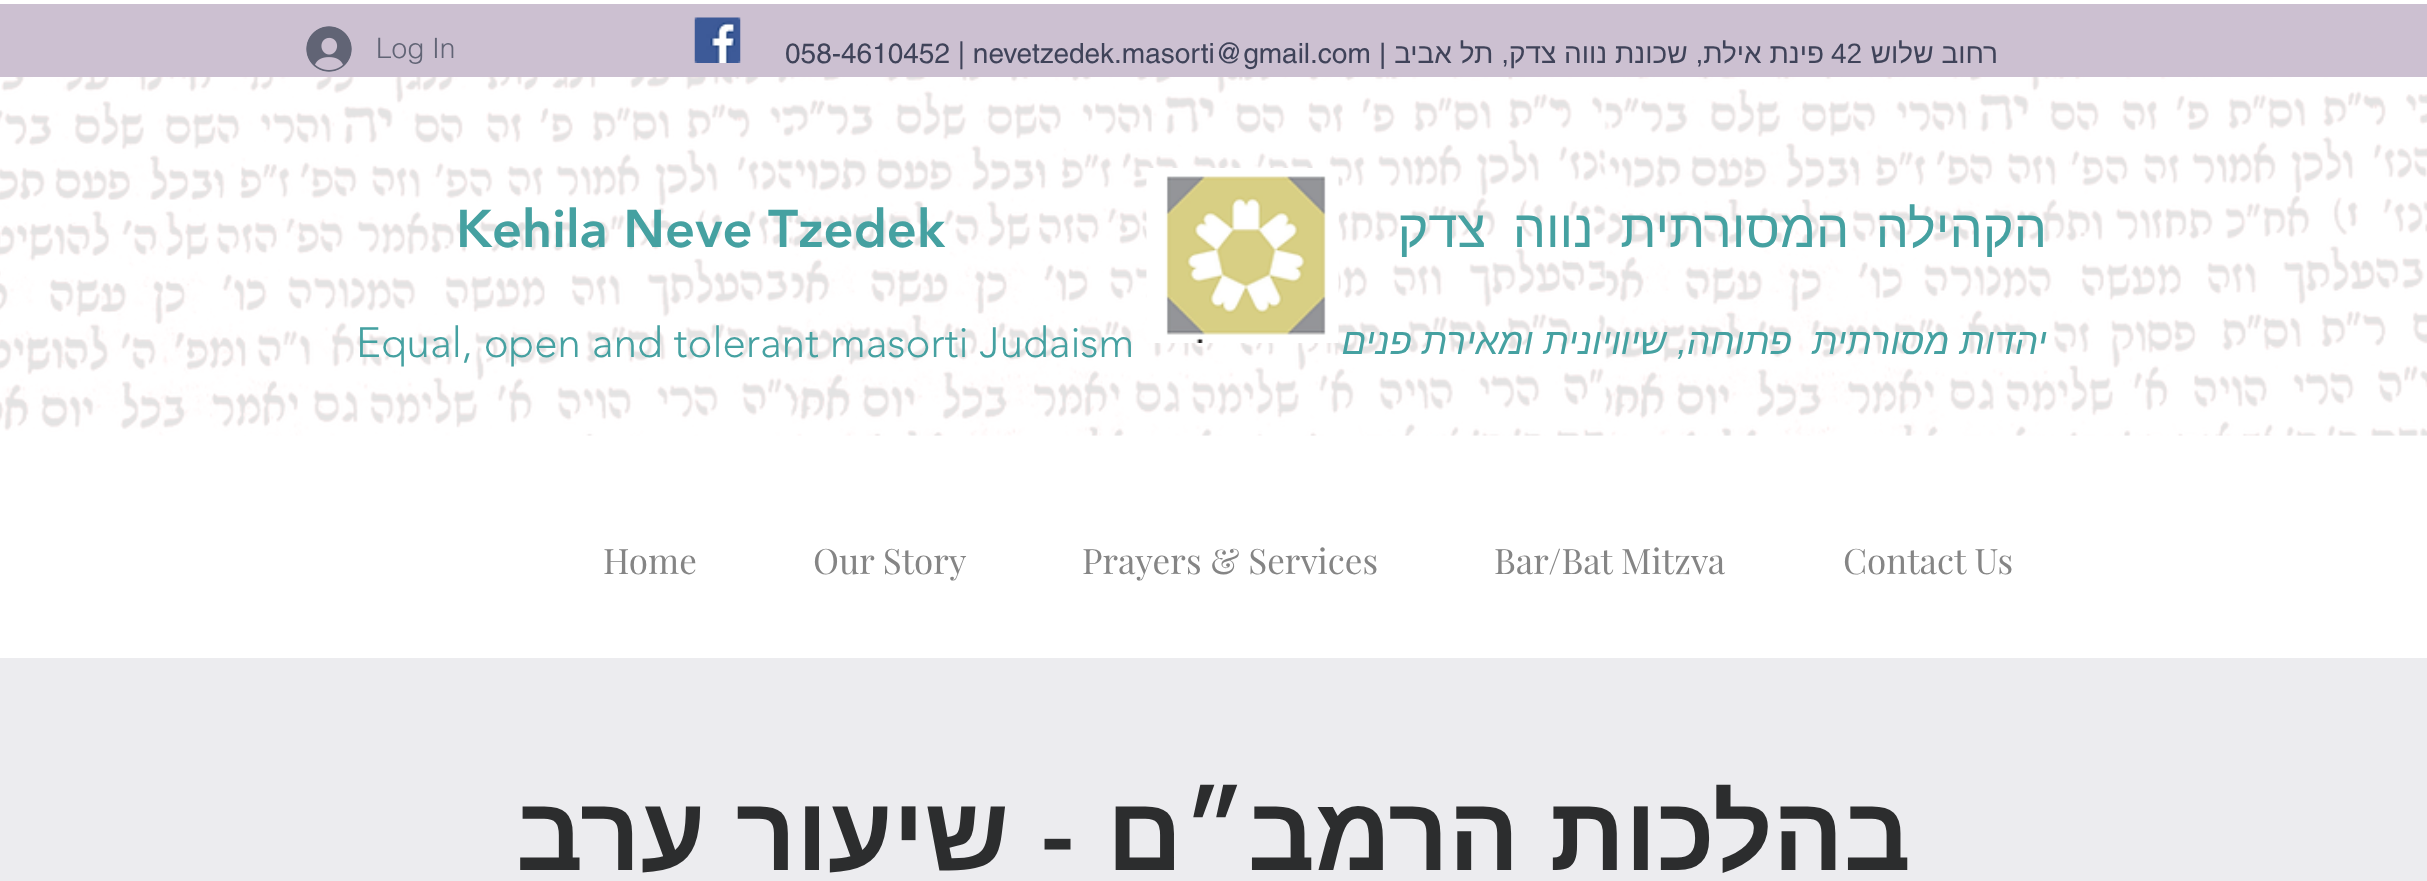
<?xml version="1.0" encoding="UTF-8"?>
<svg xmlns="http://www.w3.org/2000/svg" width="2427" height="881">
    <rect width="100%" height="100%" fill="#FFFFFF"/>
    <rect x="0" y="4" width="2427" height="73" fill="#CCC0D1"/>
    <image x="306" y="26" width="46" height="46" href="img_01.png"/>
    <text x="376" y="58" font-family="helvetica" font-size="28" font-weight="300" fill="#616475">Log In</text>
    <image x="0" y="77" width="2427" height="359" href="img_04.png"/>
    <text x="456" y="247" font-family="'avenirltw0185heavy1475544'" font-size="52.5" font-weight="900" fill="#45A1A1">Kehila Neve Tzedek</text>
    <image x="1146" y="168" width="193" height="175" href="img_02.png"/>
    <text x="2047" y="247" word-spacing="12" font-family="Liberation Sans" font-size="52.5" direction="rtl" fill="#45A1A1">הקהילה המסורתית נווה צדק</text>
    <text x="356" y="357" font-family="'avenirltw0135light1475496'" font-size="42" font-weight="300" fill="#45A1A1">Equal, open and tolerant masorti Judaism</text>
    <text x="2047" y="354" font-family="Liberation Sans" font-size="36.75" font-style="italic" direction="rtl" fill="#45A1A1" xml:space="preserve">יהדות מסורתית  פתוחה, שיוויונית ומאירת פנים</text>
    <image x="694" y="17" width="47" height="46" href="img_03.png"/>
    <text x="785" y="63" font-family="helvetica" font-size="28" fill="#3F4359">058-4610452 | nevetzedek.masorti@gmail.com</text>
    <text x="1379" y="63" font-family="Liberation Sans" font-size="28" fill="#3F4359">|</text>
    <text x="1824" y="63" font-family="Liberation Sans" font-size="28" direction="rtl" fill="#3F4359">פינת אילת, שכונת נווה צדק, תל אביב</text>
    <text x="1831" y="63" font-family="Liberation Sans" font-size="28" fill="#3F4359">42</text>
    <text x="1998" y="63" font-family="Liberation Sans" font-size="28" direction="rtl" fill="#3F4359">רחוב שלוש</text>
    <text x="603" y="574" font-family="Playfair Display" font-size="35" fill="#858585">Home</text>
    <text x="813" y="574" font-family="Playfair Display" font-size="35" fill="#858585">Our Story</text>
    <text x="1082" y="574" font-family="Playfair Display" font-size="35" fill="#858585">Prayers &amp; Services</text>
    <text x="1494" y="574" font-family="Playfair Display" font-size="35" fill="#858585">Bar/Bat Mitzva</text>
    <text x="1843" y="574" font-family="Playfair Display" font-size="35" fill="#858585">Contact Us</text>
    <rect x="0" y="658" width="2427" height="223" fill="#ECECEF"/>
    <text x="1009" y="870" word-spacing="1" font-family="Liberation Sans" font-size="105" font-weight="700" direction="rtl" fill="#2C2D2E">שיעור ערב</text>
    <text x="1074" y="870" font-family="'avenirltw0185heavy1475544'" font-size="105" font-weight="900" direction="rtl" fill="#2C2D2E">-</text>
    <text x="1911" y="870" word-spacing="1" font-family="Liberation Sans" font-size="105" font-weight="700" direction="rtl" fill="#2C2D2E">בהלכות הרמב״ם</text>
</svg>
